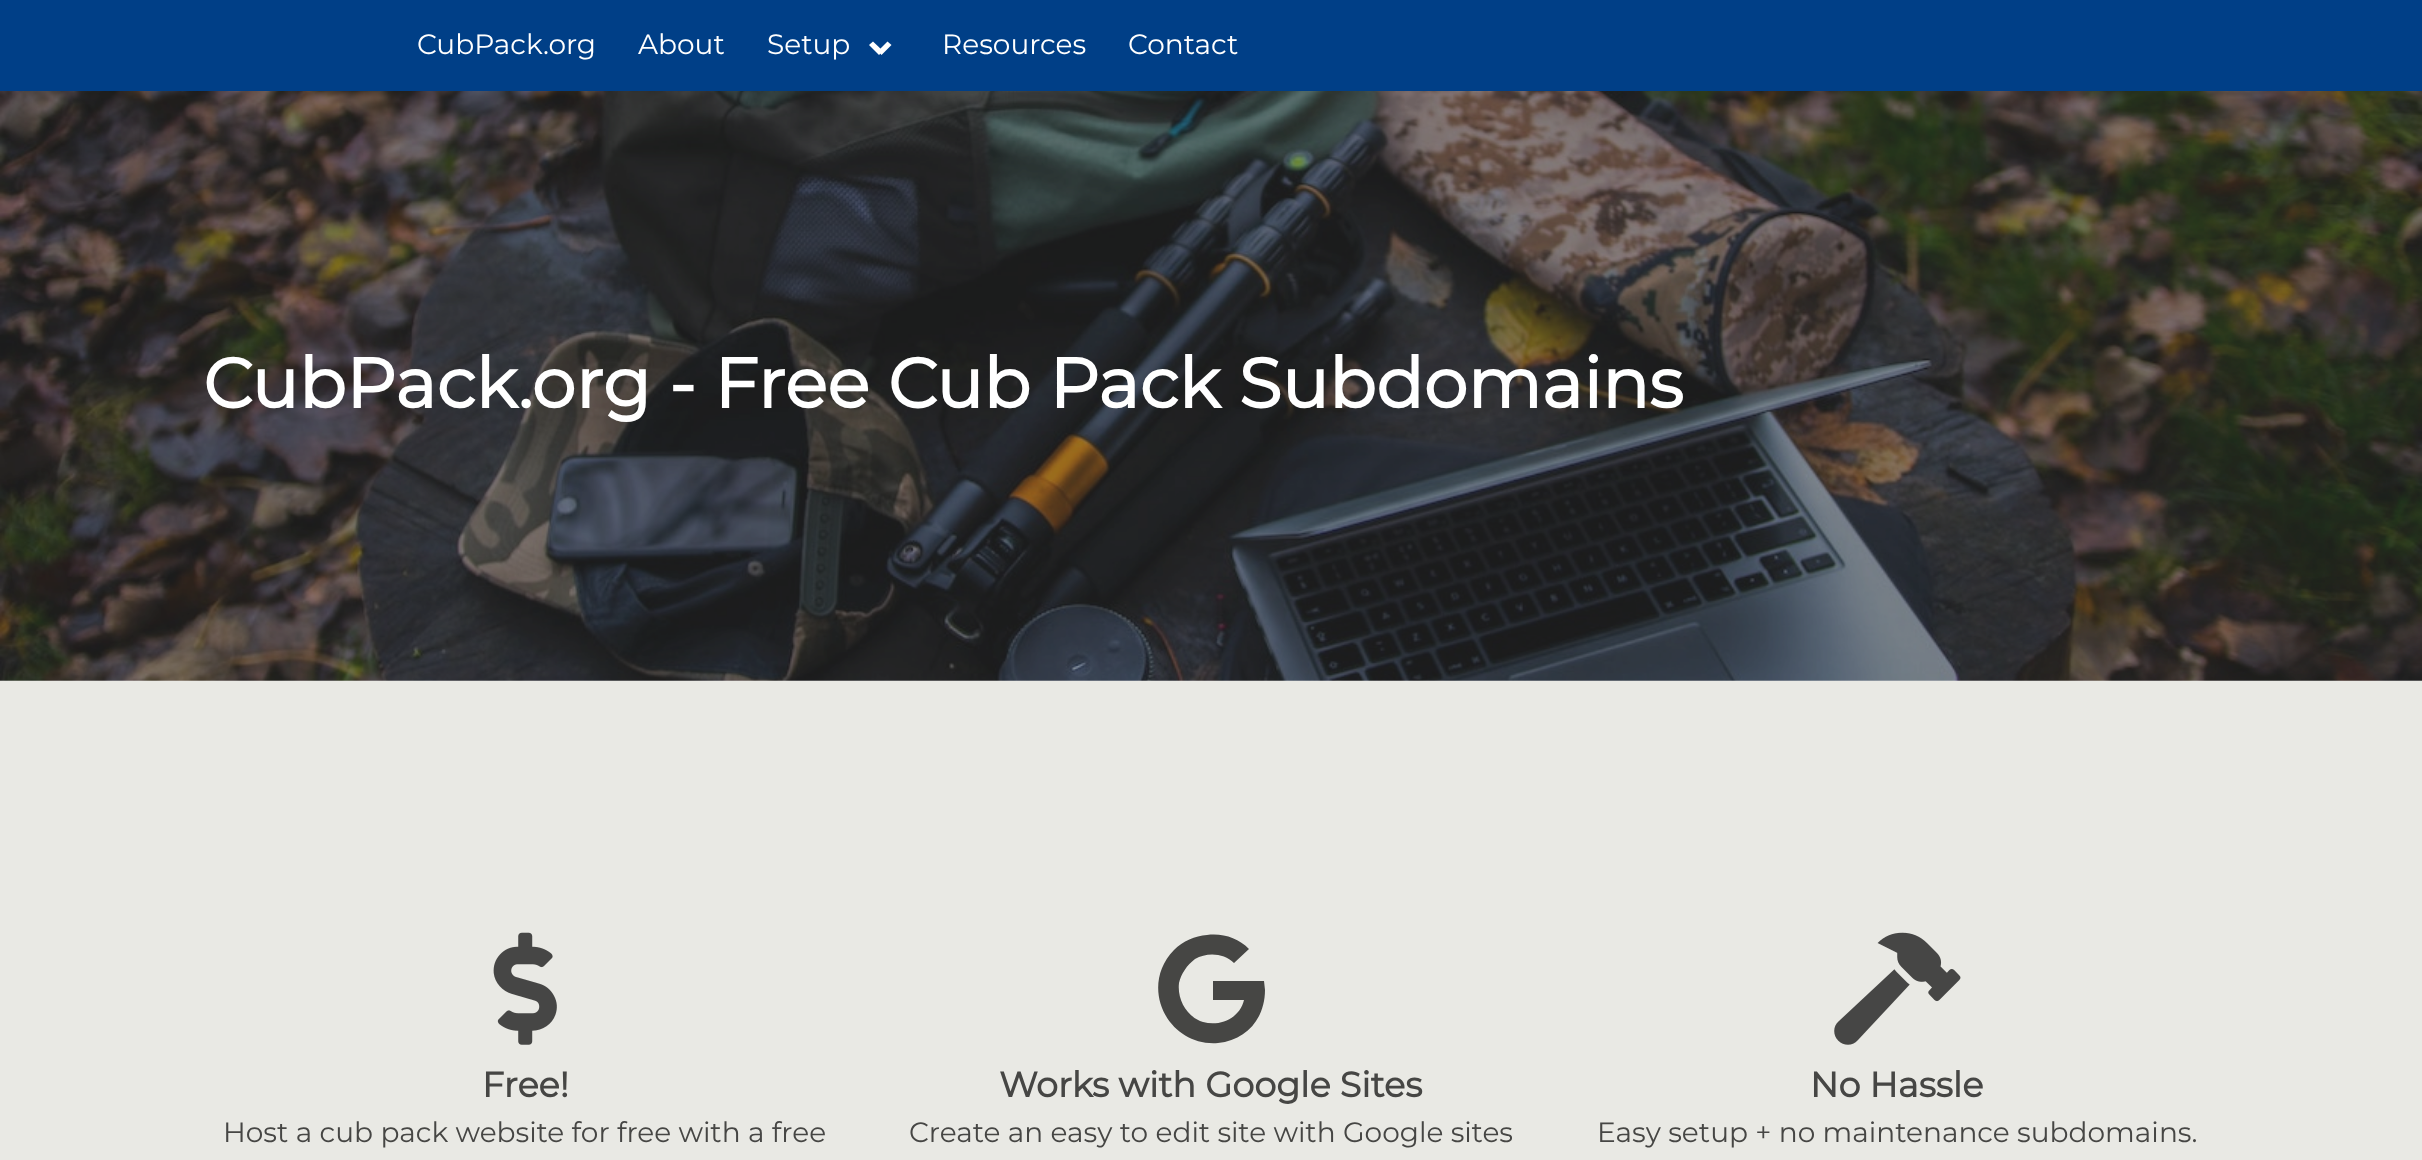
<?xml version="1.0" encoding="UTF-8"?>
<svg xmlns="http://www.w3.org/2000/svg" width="2422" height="1160">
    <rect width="100%" height="100%" fill="#FFFFFF"/>
    <rect x="0" y="0" width="2422" height="91" fill="#003F87"/>
    <text x="417" y="54" font-family="Montserrat" font-size="28" font-weight="100" fill="#FFFFFF">CubPack.org</text>
    <text x="638" y="54" font-family="Montserrat" font-size="28" font-weight="100" fill="#FFFFFF">About</text>
    <text x="767" y="54" font-family="Montserrat" font-size="28" font-weight="100" fill="#FFFFFF">Setup</text>
    <path d="M 878 51 L 887.5 41.5 L 891.5 45 L 881.5 55 Z" fill="#FFFFFF"/>
    <path d="M 869 45 L 873 41.5 L 883 51 L 879 55 Z" fill="#FFFFFF"/>
    <text x="942" y="54" font-family="Montserrat" font-size="28" font-weight="100" fill="#FFFFFF">Resources</text>
    <text x="1128" y="54" font-family="Montserrat" font-size="28" font-weight="100" fill="#FFFFFF">Contact</text>
    <image x="0" y="91" width="2422" height="590" href="img_01.png"/>
    <text x="203" y="408" font-family="Montserrat" font-size="70" font-weight="700" fill="#FFFFFF">CubPack.org - Free Cub Pack Subdomains</text>
    <rect x="0" y="681" width="2422" height="479" fill="#E9E9E4"/>
    <image x="493" y="932" width="64" height="113" href="img_02.png"/>
    <text x="482" y="1097" font-family="Montserrat" font-size="35" font-weight="700" fill="#464644">Free!</text>
    <text x="223" y="1142" font-family="Montserrat" font-size="28" font-weight="100" fill="#464644">Host a cub pack website for free with a free</text>
    <path d="M 1265 990 C 1265 1018 1247 1040 1218 1043 C 1168 1047 1138 987 1174 950 C 1183 941 1195 936 1207 935 C 1223 933 1238 938 1249 949 L 1234 963 C 1224 953 1207 952 1195 959 C 1187 965 1181 974 1179 983 C 1177 1000 1187 1017 1203 1022 C 1220 1027 1240 1018 1244 1000 H 1213 V 981 H 1264 Z" fill="#464644"/>
    <text x="999" y="1097" font-family="Montserrat" font-size="35" font-weight="700" fill="#464644">Works with Google Sites</text>
    <text x="909" y="1142" font-family="Montserrat" font-size="28" font-weight="100" fill="#464644">Create an easy to edit site with Google sites</text>
    <image x="1834" y="932" width="127" height="113" href="img_03.png"/>
    <text x="1810" y="1097" font-family="Montserrat" font-size="35" font-weight="700" fill="#464644">No Hassle</text>
    <text x="1597" y="1142" font-family="Montserrat" font-size="28" font-weight="100" fill="#464644">Easy setup + no maintenance subdomains.</text>
</svg>
